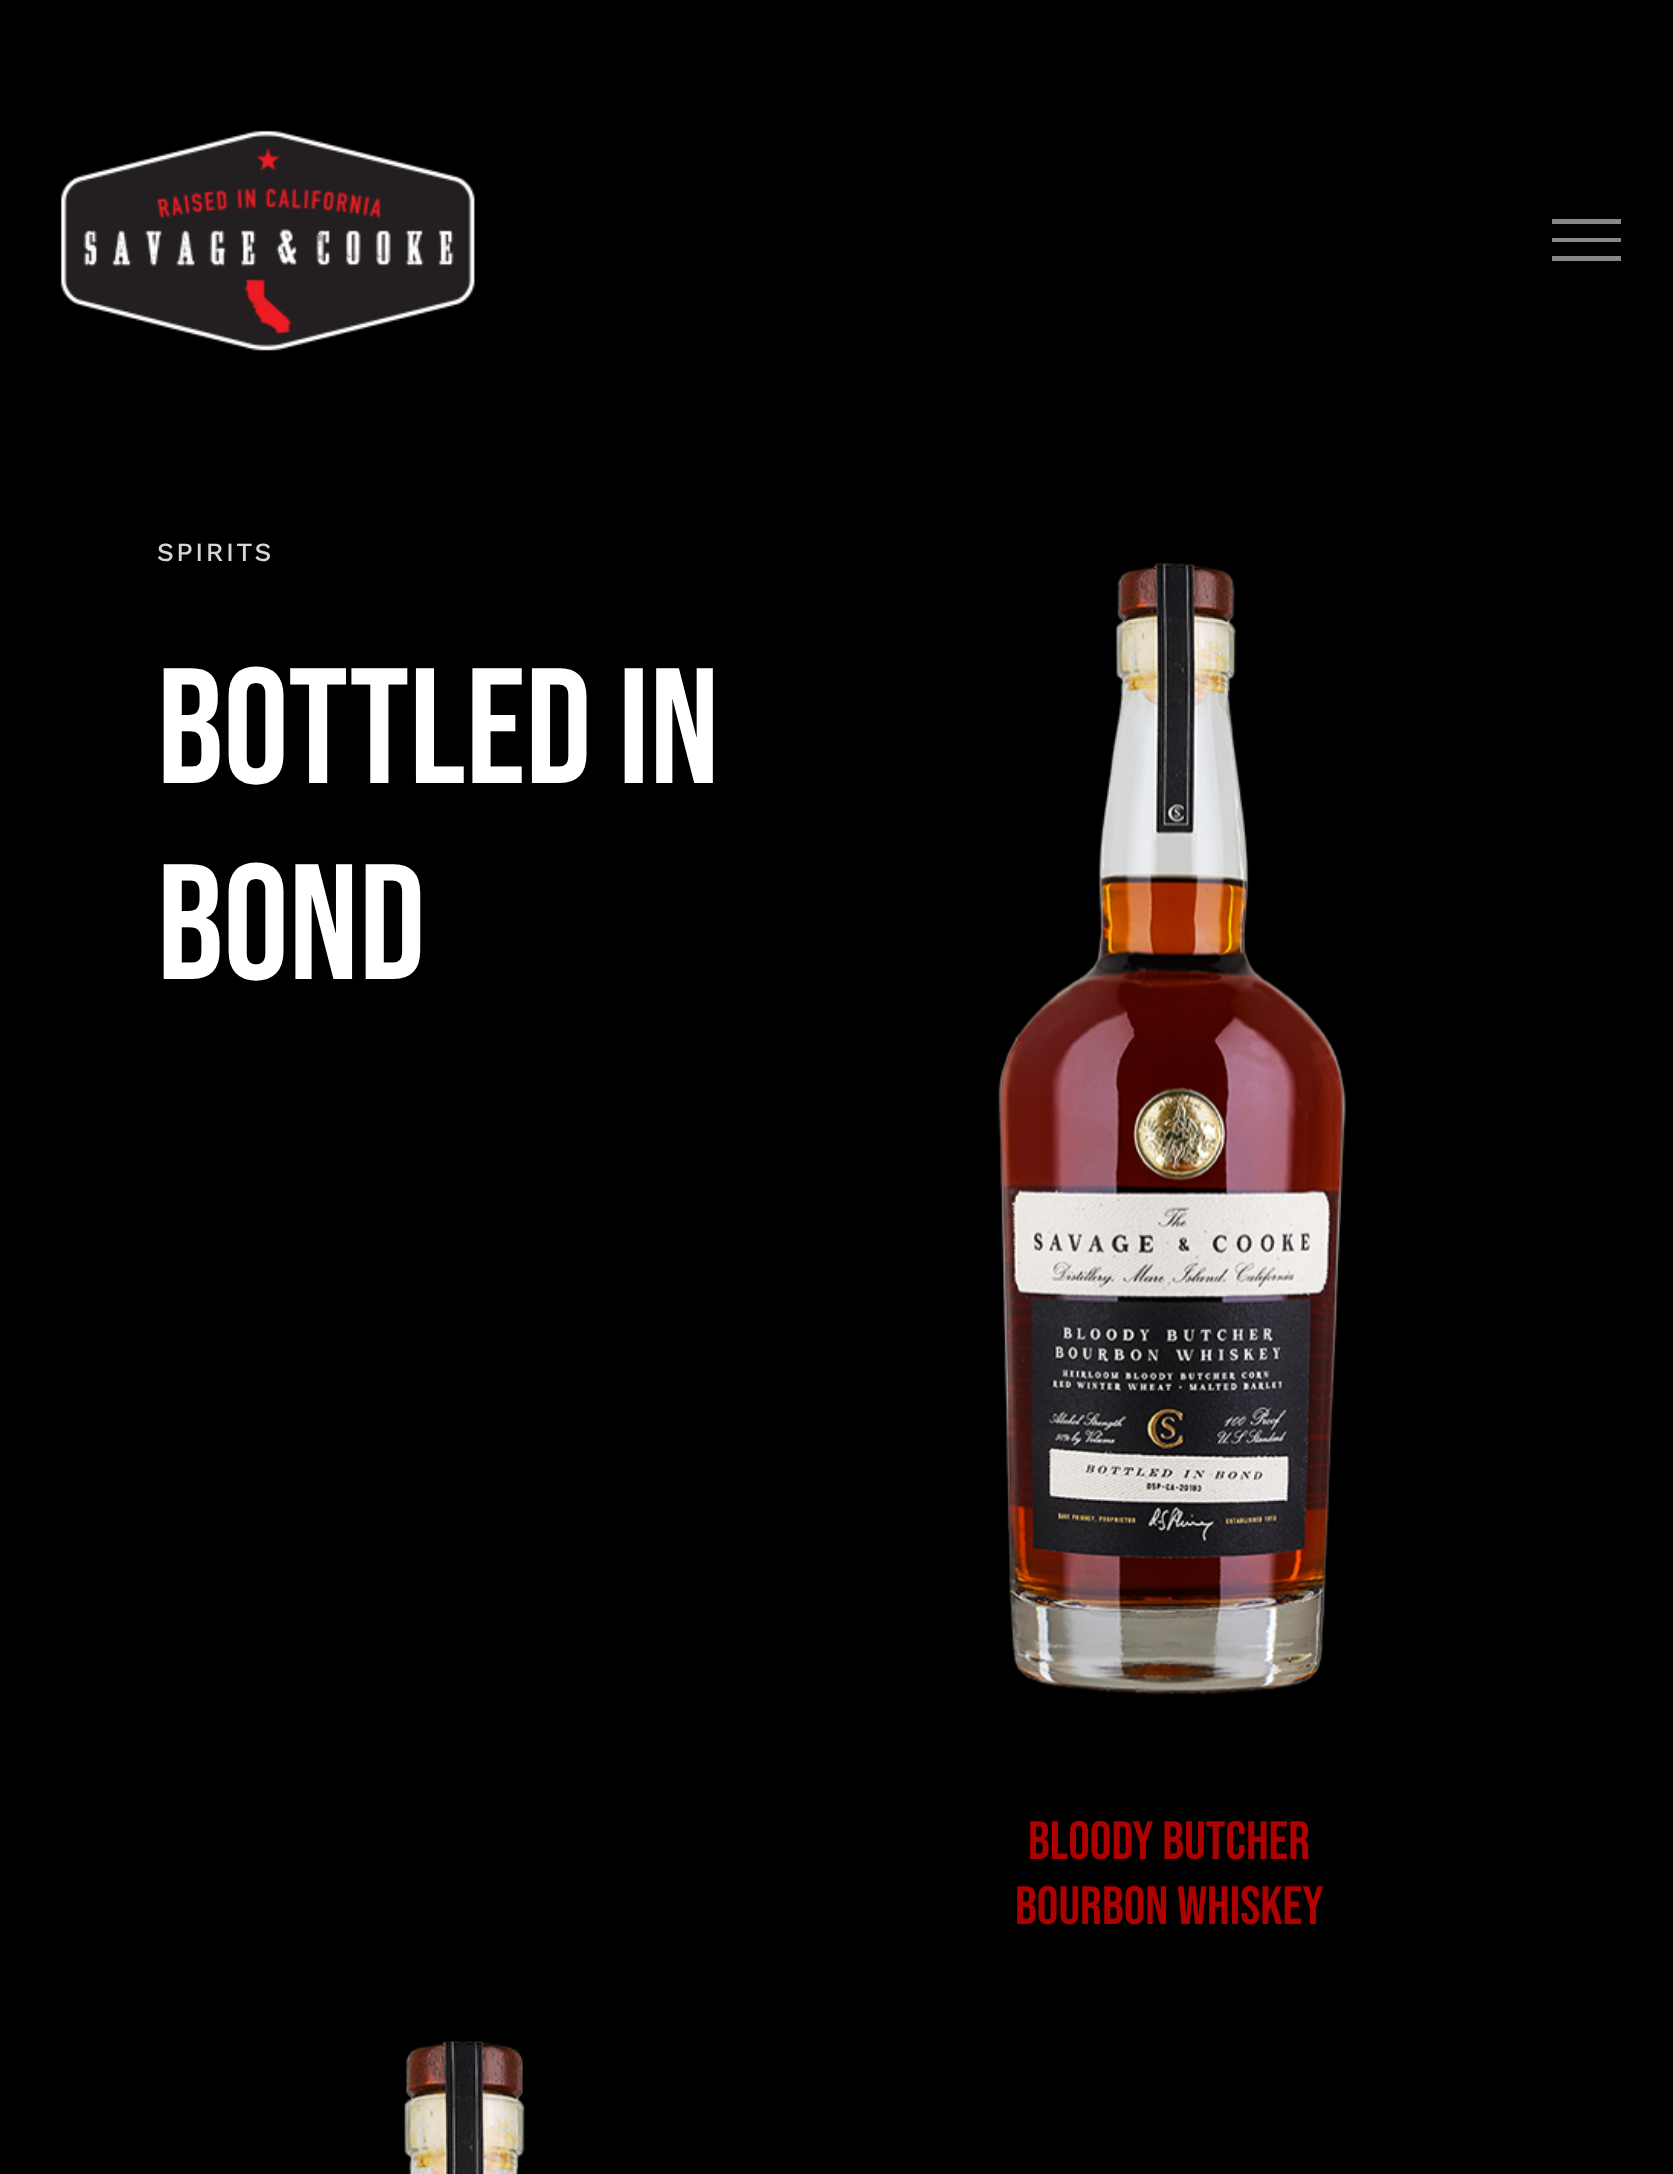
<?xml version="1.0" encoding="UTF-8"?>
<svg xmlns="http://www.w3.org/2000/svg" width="1673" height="2174">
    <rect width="100%" height="100%" fill="#000000"/>
    <image x="60" y="130" width="415" height="221" href="img_01.png"/>
    <rect x="1552" y="219" width="69" height="5" fill="#878787"/>
    <rect x="1552" y="238" width="69" height="4" fill="#878787"/>
    <rect x="1552" y="256" width="69" height="5" fill="#878787"/>
    <text x="157" y="561" font-family="Work Sans" font-size="26.25" font-weight="500" letter-spacing="2.5" fill="#D6D6D6">SPIRITS</text>
    <text font-family="Bebas Neue" font-size="164" fill="#FFFFFF">
        <tspan x="157" y="783">Bottled In</tspan>
        <tspan x="157" y="979">Bond</tspan>
    </text>
    <image x="998" y="563" width="348" height="1132" href="img_02.png"/>
    <text x="1028" y="1859" font-family="Bebas Neue" font-size="54" fill="#AD0000">Bloody Butcher</text>
    <text x="1015" y="1924" font-family="Bebas Neue" font-size="54" fill="#AD0000">Bourbon Whiskey</text>
    <image x="404" y="2041" width="121" height="133" href="img_03.png"/>
</svg>
